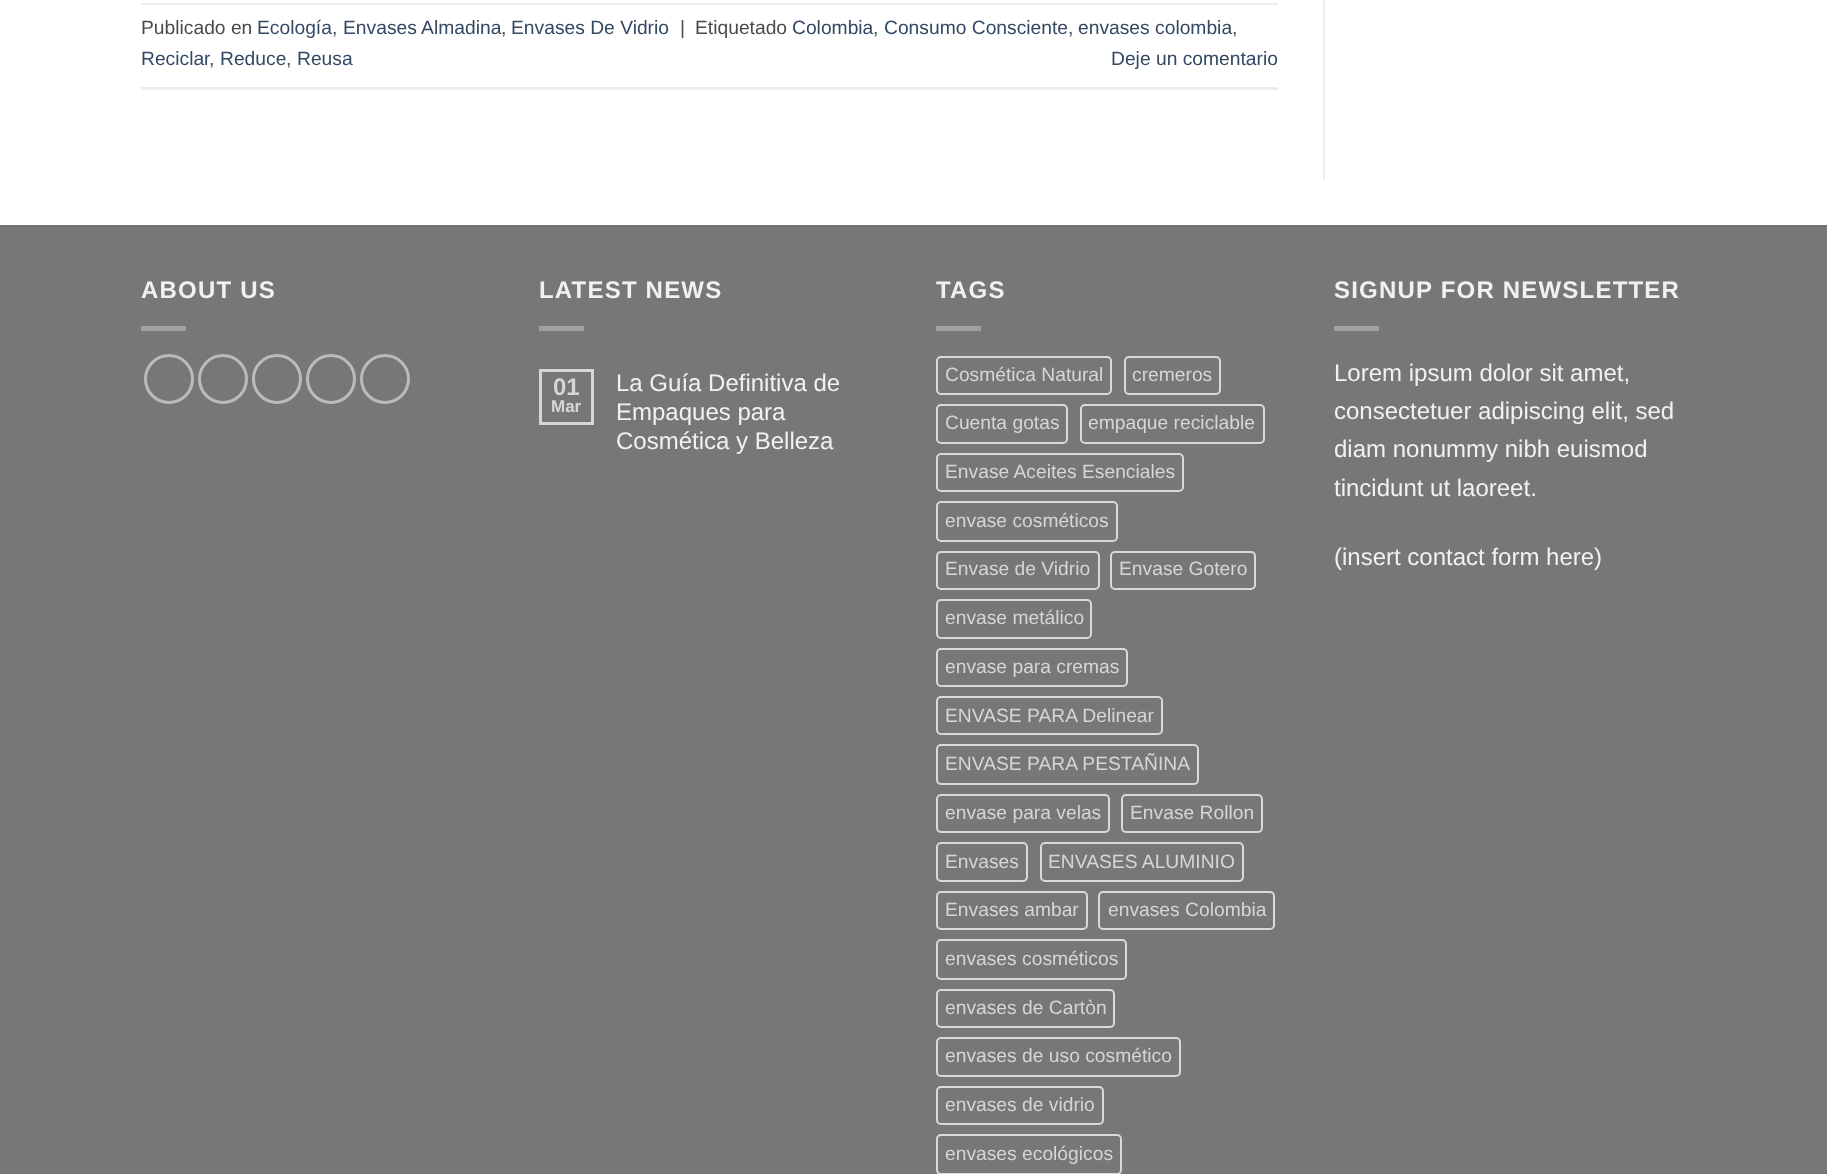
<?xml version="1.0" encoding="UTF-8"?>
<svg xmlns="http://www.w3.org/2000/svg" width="1827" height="1174">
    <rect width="100%" height="100%" fill="#FFFFFF"/>
    <rect x="141" y="3" width="1137" height="2" fill="#ECECEC"/>
    <rect x="141" y="87" width="1137" height="3" fill="#ECECEC"/>
    <text x="141" y="34" font-family="Liberation Sans" font-size="19.25" fill="#4A4A4A">Publicado en</text>
    <text x="257" y="34" font-family="Liberation Sans" font-size="19.25" fill="#334862">Ecología</text>
    <text x="332" y="34" font-family="Liberation Sans" font-size="19.25" fill="#4A4A4A">,</text>
    <text x="343" y="34" font-family="Liberation Sans" font-size="19.25" fill="#334862">Envases Almadina</text>
    <text x="501" y="34" font-family="Liberation Sans" font-size="19.25" fill="#4A4A4A">,</text>
    <text x="511" y="34" font-family="Liberation Sans" font-size="19.25" fill="#334862">Envases De Vidrio</text>
    <text x="680" y="34" font-family="Liberation Sans" font-size="19.25" fill="#4A4A4A">|</text>
    <text x="695" y="34" font-family="Liberation Sans" font-size="19.25" fill="#4A4A4A">Etiquetado</text>
    <text x="792" y="34" font-family="Liberation Sans" font-size="19.25" fill="#334862">Colombia</text>
    <text x="873" y="34" font-family="Liberation Sans" font-size="19.25" fill="#4A4A4A">,</text>
    <text x="884" y="34" font-family="Liberation Sans" font-size="19.25" fill="#334862">Consumo Consciente</text>
    <text x="1068" y="34" font-family="Liberation Sans" font-size="19.25" fill="#4A4A4A">,</text>
    <text x="1078" y="34" font-family="Liberation Sans" font-size="19.25" fill="#334862">envases colombia</text>
    <text x="1232" y="34" font-family="Liberation Sans" font-size="19.25" fill="#4A4A4A">,</text>
    <text x="141" y="65" font-family="Liberation Sans" font-size="19.25" fill="#334862">Reciclar</text>
    <text x="209" y="65" font-family="Liberation Sans" font-size="19.25" fill="#4A4A4A">,</text>
    <text x="220" y="65" font-family="Liberation Sans" font-size="19.25" fill="#334862">Reduce</text>
    <text x="286" y="65" font-family="Liberation Sans" font-size="19.25" fill="#4A4A4A">,</text>
    <text x="297" y="65" font-family="Liberation Sans" font-size="19.25" fill="#334862">Reusa</text>
    <text x="1111" y="65" font-family="Liberation Sans" font-size="19.25" fill="#334862">Deje un comentario</text>
    <rect x="1323" y="0" width="2" height="180" fill="#ECECEC"/>
    <rect x="0" y="227" width="1827" height="947" fill="#777777"/>
    <rect x="0" y="225" width="1827" height="2" fill="#717171"/>
    <text x="141" y="298" font-family="Liberation Sans" font-size="24" font-weight="700" letter-spacing="1.2" fill="#F1F1F1">ABOUT US</text>
    <rect x="141" y="326" width="45" height="5" fill="#A0A0A0"/>
    <circle cx="169" cy="379" r="23.5" fill="none" stroke="#BBBBBB" stroke-width="3"/>
    <circle cx="223" cy="379" r="23.5" fill="none" stroke="#BBBBBB" stroke-width="3"/>
    <circle cx="277" cy="379" r="23.5" fill="none" stroke="#BBBBBB" stroke-width="3"/>
    <circle cx="331" cy="379" r="23.5" fill="none" stroke="#BBBBBB" stroke-width="3"/>
    <circle cx="385" cy="379" r="23.5" fill="none" stroke="#BBBBBB" stroke-width="3"/>
    <text x="539" y="298" font-family="Liberation Sans" font-size="24" font-weight="700" letter-spacing="1.2" fill="#F1F1F1">LATEST NEWS</text>
    <rect x="539" y="326" width="45" height="5" fill="#A0A0A0"/>
    <rect x="540.5" y="370.5" width="52" height="53" fill="none" stroke="#D6D6D6" stroke-width="3"/>
    <text x="553" y="395" font-family="Liberation Sans" font-size="24" font-weight="700" fill="#D6D6D6">01</text>
    <text x="551" y="412" font-family="Liberation Sans" font-size="17" font-weight="700" fill="#D6D6D6">Mar</text>
    <text font-family="Liberation Sans" font-size="24" fill="#F1F1F1">
        <tspan x="616" y="391">La Guía Definitiva de</tspan>
        <tspan x="616" y="420">Empaques para</tspan>
        <tspan x="616" y="449">Cosmética y Belleza</tspan>
    </text>
    <text x="936" y="298" font-family="Liberation Sans" font-size="24" font-weight="700" letter-spacing="1.2" fill="#F1F1F1">TAGS</text>
    <rect x="936" y="326" width="45" height="5" fill="#A0A0A0"/>
    <rect x="937" y="357" width="174" height="37" rx="4" fill="none" stroke="#D9D9D9" stroke-width="2"/>
    <text x="945" y="381" font-family="Liberation Sans" font-size="19.25" fill="#D6D6D6">Cosmética Natural</text>
    <rect x="1125" y="357" width="95" height="37" rx="4" fill="none" stroke="#D9D9D9" stroke-width="2"/>
    <text x="1132" y="381" font-family="Liberation Sans" font-size="19.25" fill="#D6D6D6">cremeros</text>
    <rect x="937" y="405" width="130" height="38" rx="4" fill="none" stroke="#D9D9D9" stroke-width="2"/>
    <text x="945" y="429" font-family="Liberation Sans" font-size="19.25" fill="#D6D6D6">Cuenta gotas</text>
    <rect x="1081" y="405" width="183" height="38" rx="4" fill="none" stroke="#D9D9D9" stroke-width="2"/>
    <text x="1088" y="429" font-family="Liberation Sans" font-size="19.25" fill="#D6D6D6">empaque reciclable</text>
    <rect x="937" y="454" width="246" height="37" rx="4" fill="none" stroke="#D9D9D9" stroke-width="2"/>
    <text x="945" y="478" font-family="Liberation Sans" font-size="19.25" fill="#D6D6D6">Envase Aceites Esenciales</text>
    <rect x="937" y="502" width="180" height="39" rx="4" fill="none" stroke="#D9D9D9" stroke-width="2"/>
    <text x="945" y="527" font-family="Liberation Sans" font-size="19.25" fill="#D6D6D6">envase cosméticos</text>
    <rect x="937" y="552" width="162" height="37" rx="4" fill="none" stroke="#D9D9D9" stroke-width="2"/>
    <text x="945" y="575" font-family="Liberation Sans" font-size="19.25" fill="#D6D6D6">Envase de Vidrio</text>
    <rect x="1111" y="552" width="144" height="37" rx="4" fill="none" stroke="#D9D9D9" stroke-width="2"/>
    <text x="1119" y="575" font-family="Liberation Sans" font-size="19.25" fill="#D6D6D6">Envase Gotero</text>
    <rect x="937" y="600" width="154" height="38" rx="4" fill="none" stroke="#D9D9D9" stroke-width="2"/>
    <text x="945" y="624" font-family="Liberation Sans" font-size="19.25" fill="#D6D6D6">envase metálico</text>
    <rect x="937" y="649" width="190" height="37" rx="4" fill="none" stroke="#D9D9D9" stroke-width="2"/>
    <text x="945" y="673" font-family="Liberation Sans" font-size="19.25" fill="#D6D6D6">envase para cremas</text>
    <rect x="937" y="697" width="225" height="37" rx="4" fill="none" stroke="#D9D9D9" stroke-width="2"/>
    <text x="945" y="722" font-family="Liberation Sans" font-size="19.25" fill="#D6D6D6">ENVASE PARA Delinear</text>
    <rect x="937" y="745" width="261" height="39" rx="4" fill="none" stroke="#D9D9D9" stroke-width="2"/>
    <text x="945" y="770" font-family="Liberation Sans" font-size="19.25" fill="#D6D6D6">ENVASE PARA PESTAÑINA</text>
    <rect x="937" y="795" width="172" height="37" rx="4" fill="none" stroke="#D9D9D9" stroke-width="2"/>
    <text x="945" y="819" font-family="Liberation Sans" font-size="19.25" fill="#D6D6D6">envase para velas</text>
    <rect x="1122" y="795" width="140" height="37" rx="4" fill="none" stroke="#D9D9D9" stroke-width="2"/>
    <text x="1130" y="819" font-family="Liberation Sans" font-size="19.25" fill="#D6D6D6">Envase Rollon</text>
    <rect x="937" y="843" width="90" height="38" rx="4" fill="none" stroke="#D9D9D9" stroke-width="2"/>
    <text x="945" y="868" font-family="Liberation Sans" font-size="19.25" fill="#D6D6D6">Envases</text>
    <rect x="1041" y="843" width="202" height="38" rx="4" fill="none" stroke="#D9D9D9" stroke-width="2"/>
    <text x="1048" y="868" font-family="Liberation Sans" font-size="19.25" fill="#D6D6D6">ENVASES ALUMINIO</text>
    <rect x="937" y="892" width="150" height="37" rx="4" fill="none" stroke="#D9D9D9" stroke-width="2"/>
    <text x="945" y="916" font-family="Liberation Sans" font-size="19.25" fill="#D6D6D6">Envases ambar</text>
    <rect x="1099" y="892" width="175" height="37" rx="4" fill="none" stroke="#D9D9D9" stroke-width="2"/>
    <text x="1108" y="916" font-family="Liberation Sans" font-size="19.25" fill="#D6D6D6">envases Colombia</text>
    <rect x="937" y="940" width="189" height="39" rx="4" fill="none" stroke="#D9D9D9" stroke-width="2"/>
    <text x="945" y="965" font-family="Liberation Sans" font-size="19.25" fill="#D6D6D6">envases cosméticos</text>
    <rect x="937" y="990" width="177" height="37" rx="4" fill="none" stroke="#D9D9D9" stroke-width="2"/>
    <text x="945" y="1014" font-family="Liberation Sans" font-size="19.25" fill="#D6D6D6">envases de Cartòn</text>
    <rect x="937" y="1038" width="243" height="38" rx="4" fill="none" stroke="#D9D9D9" stroke-width="2"/>
    <text x="945" y="1062" font-family="Liberation Sans" font-size="19.25" fill="#D6D6D6">envases de uso cosmético</text>
    <rect x="937" y="1087" width="166" height="37" rx="4" fill="none" stroke="#D9D9D9" stroke-width="2"/>
    <text x="945" y="1111" font-family="Liberation Sans" font-size="19.25" fill="#D6D6D6">envases de vidrio</text>
    <rect x="937" y="1135" width="184" height="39" rx="4" fill="none" stroke="#D9D9D9" stroke-width="2"/>
    <text x="945" y="1160" font-family="Liberation Sans" font-size="19.25" fill="#D6D6D6">envases ecológicos</text>
    <text x="1334" y="298" font-family="Liberation Sans" font-size="24" font-weight="700" letter-spacing="1.2" fill="#F1F1F1">SIGNUP FOR NEWSLETTER</text>
    <rect x="1334" y="326" width="45" height="5" fill="#A0A0A0"/>
    <text font-family="Liberation Sans" font-size="24" fill="#F1F1F1">
        <tspan x="1334" y="381">Lorem ipsum dolor sit amet,</tspan>
        <tspan x="1334" y="419">consectetuer adipiscing elit, sed</tspan>
        <tspan x="1334" y="457">diam nonummy nibh euismod</tspan>
        <tspan x="1334" y="496">tincidunt ut laoreet.</tspan>
    </text>
    <text x="1334" y="565" font-family="Liberation Sans" font-size="24" fill="#F1F1F1">(insert contact form here)</text>
</svg>
